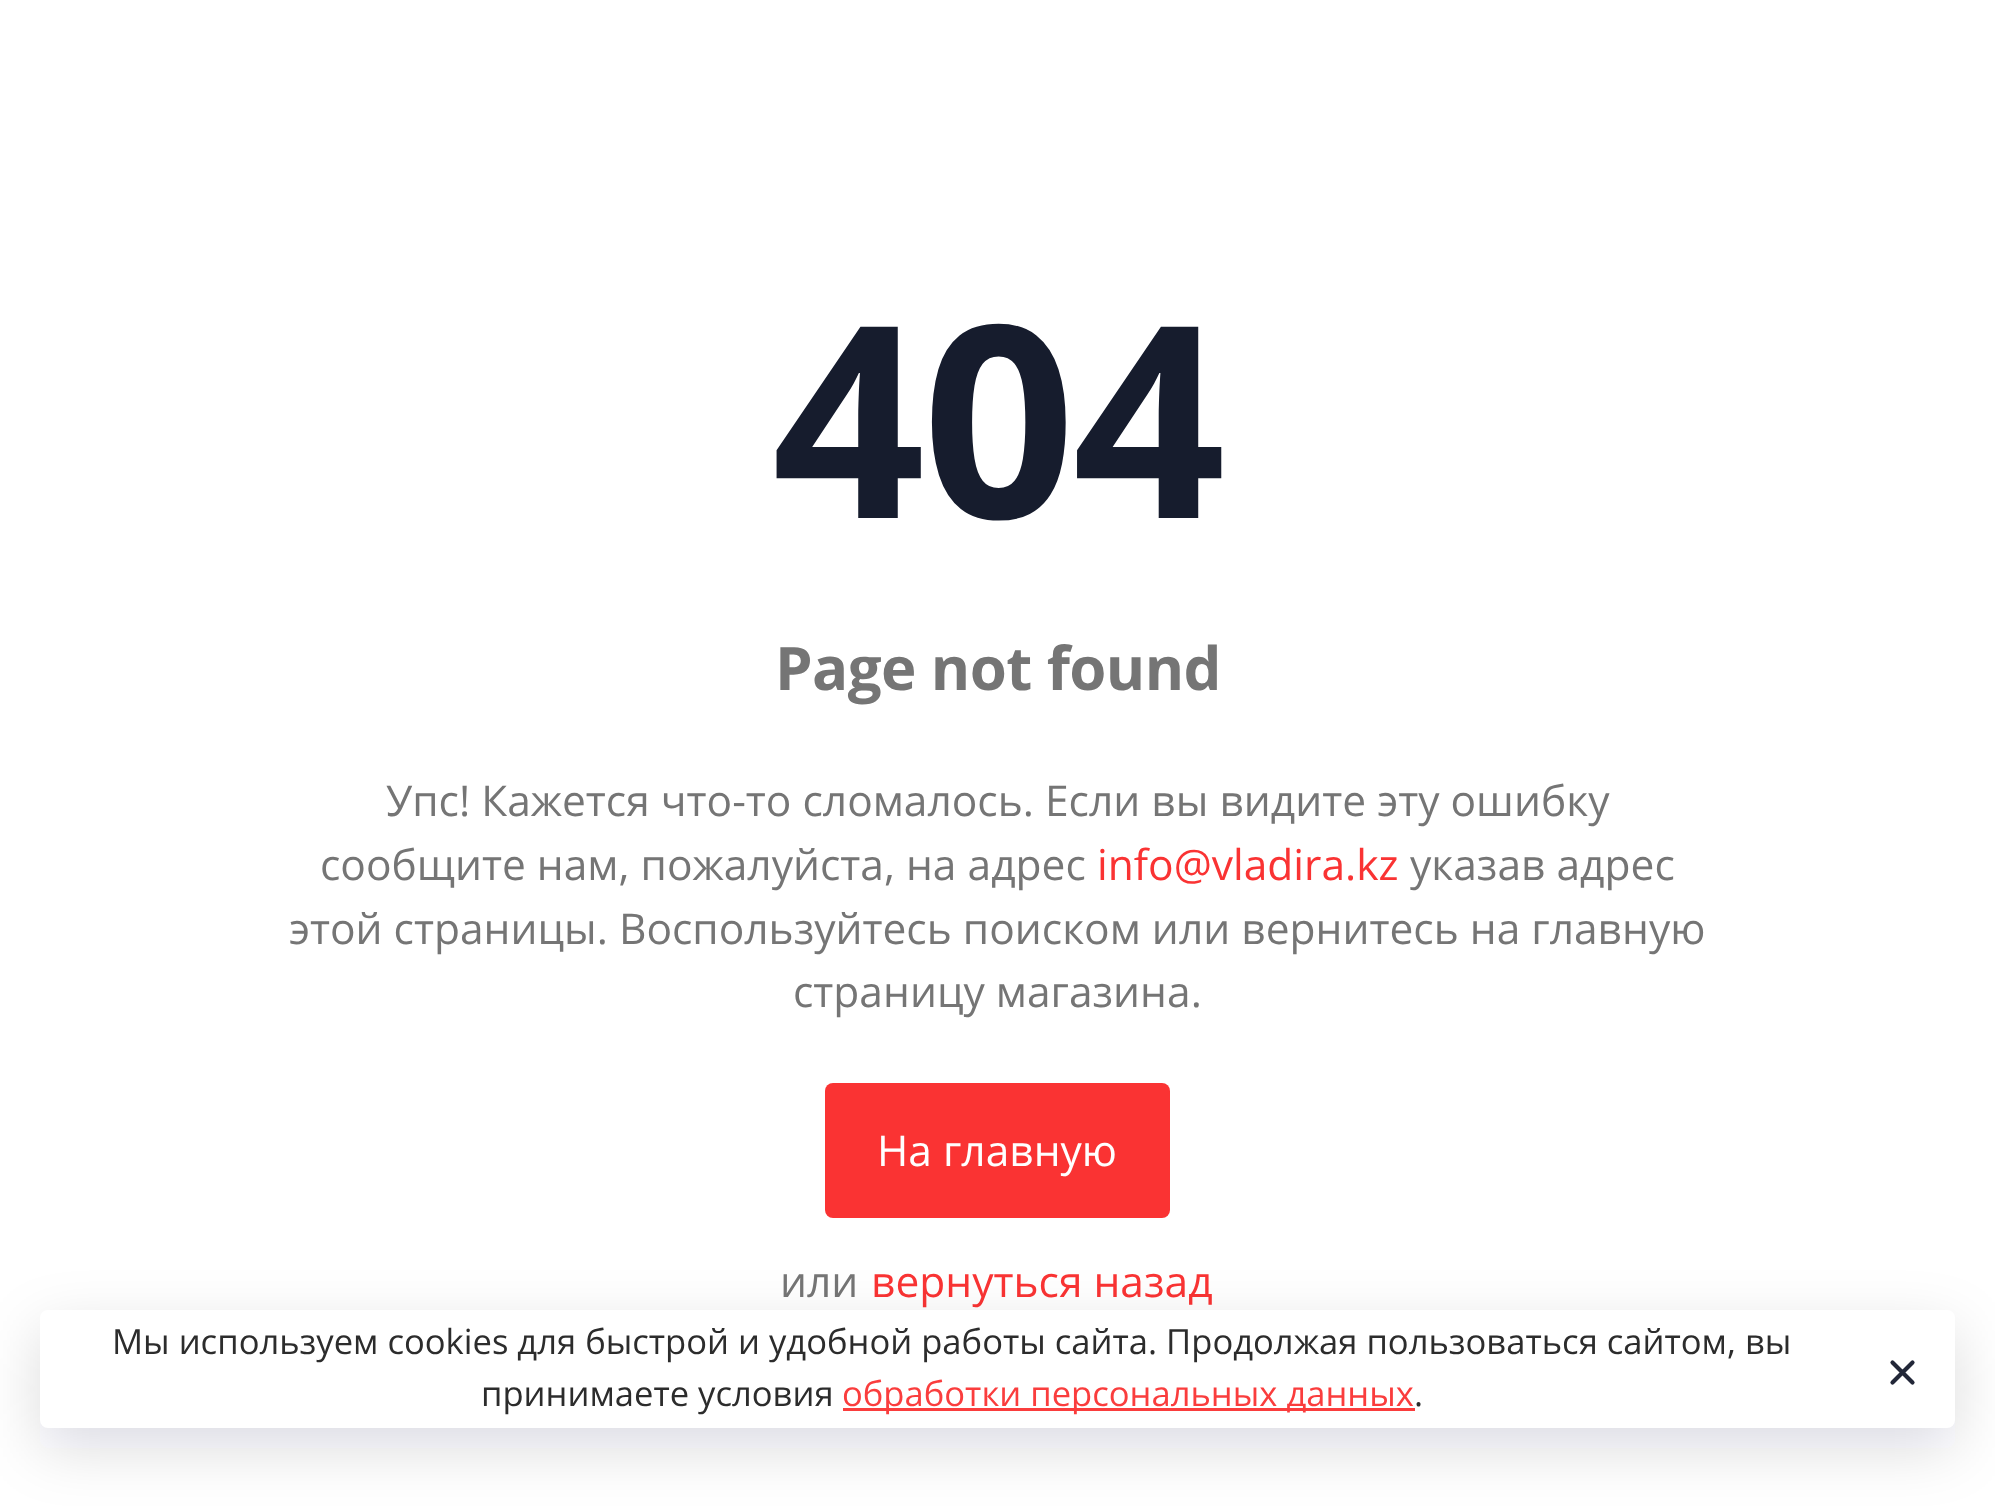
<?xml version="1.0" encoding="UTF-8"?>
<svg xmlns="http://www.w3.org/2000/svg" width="1995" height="1506">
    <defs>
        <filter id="blur1" x="-50%" y="-200%" width="200%" height="500%"><feGaussianBlur stdDeviation="30"/></filter>
    </defs>
    <rect width="100%" height="100%" fill="#FFFFFF"/>
    <text x="772" y="518" font-family="Open Sans" font-size="268" font-weight="700" letter-spacing="-3" fill="#161C2D">404</text>
    <text x="775" y="690" font-family="Open Sans" font-size="60" font-weight="700" letter-spacing="-0.6" fill="#757575">Page not found</text>
    <text x="386" y="816" font-family="Open Sans" font-size="42.5" fill="#757575">Упс! Кажется что-то сломалось. Если вы видите эту ошибку</text>
    <text x="320" y="880" font-family="Open Sans" font-size="42.5" fill="#757575">сообщите нам, пожалуйста, на адрес</text>
    <text x="1097" y="880" font-family="Open Sans" font-size="42.5" fill="#FA3333">info@vladira.kz</text>
    <text x="1410" y="880" font-family="Open Sans" font-size="42.5" fill="#757575">указав адрес</text>
    <text x="289" y="944" font-family="Open Sans" font-size="42.5" fill="#757575">этой страницы. Воспользуйтесь поиском или вернитесь на главную</text>
    <text x="793" y="1007" font-family="Open Sans" font-size="42.5" fill="#757575">страницу магазина.</text>
    <rect x="825" y="1083" width="345" height="135" rx="8" fill="#FA3333"/>
    <text x="877" y="1166" font-family="Open Sans" font-size="42.5" fill="#FFFFFF">На главную</text>
    <text x="780" y="1297" font-family="Open Sans" font-size="42.5" fill="#757575">или</text>
    <text x="871" y="1297" font-family="Open Sans" font-size="42.5" fill="#FA3333">вернуться назад</text>
    <rect x="40" y="1330" width="1915" height="118" rx="8" fill="#161C2D" fill-opacity="0.14" filter="url(#blur1)"/>
    <rect x="41.5" y="1311.5" width="1912" height="115" rx="6.5" fill="#FFFFFF" stroke="#FFFFFF" stroke-width="3"/>
    <text x="112" y="1354" font-family="Open Sans" font-size="34.6" fill="#2C2C2C">Мы используем cookies для быстрой и удобной работы сайта. Продолжая пользоваться сайтом, вы</text>
    <text x="481" y="1406" font-family="Open Sans" font-size="34.6" fill="#2C2C2C">принимаете условия</text>
    <rect x="843" y="1408" width="572" height="3" fill="#FA3D3D"/>
    <text x="842" y="1406" font-family="Open Sans" font-size="34.6" fill="#FA3D3D">обработки персональных данных</text>
    <text x="1414" y="1406" font-family="Open Sans" font-size="34.6" fill="#2C2C2C">.</text>
    <path d="M 1912.5 1362.5 L 1892.5 1382.5 M 1892.5 1362.5 L 1912.5 1382.5" fill="none" stroke="#222738" stroke-width="4.2" stroke-linecap="round" stroke-linejoin="round"/>
</svg>
